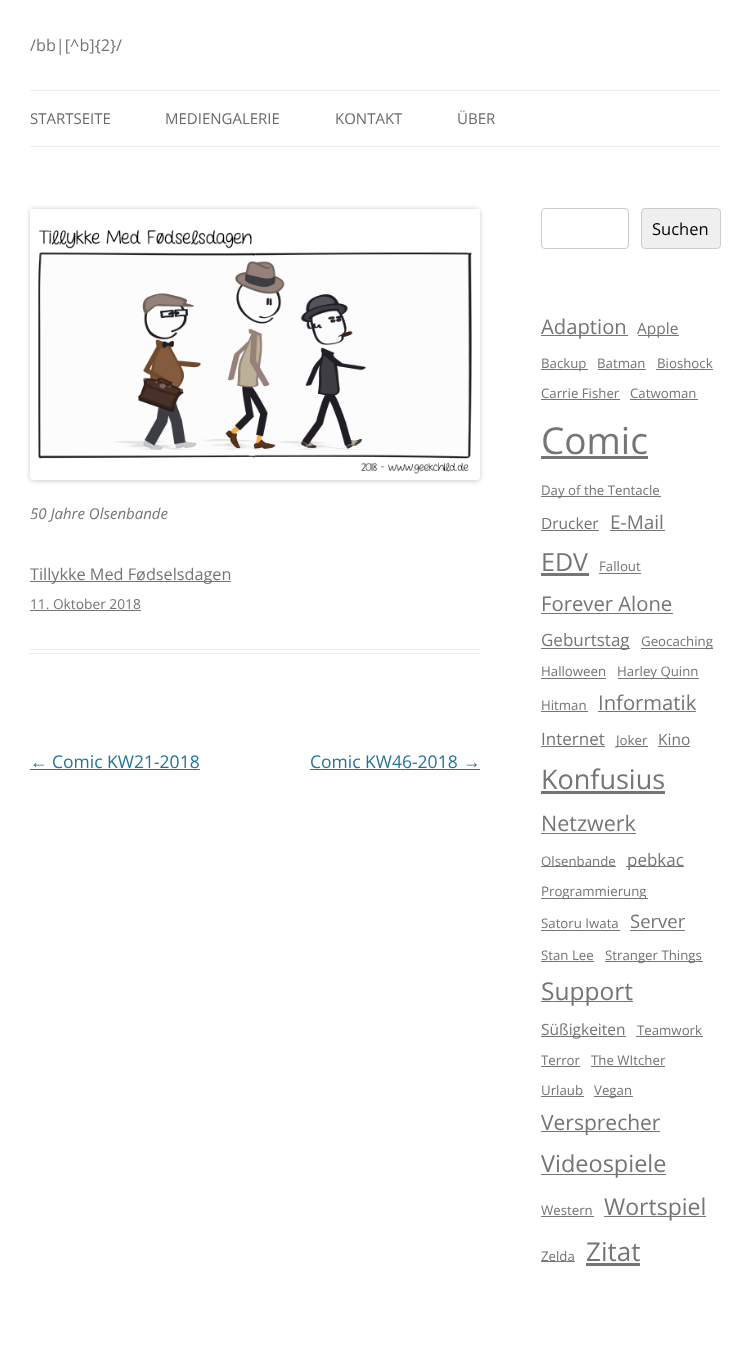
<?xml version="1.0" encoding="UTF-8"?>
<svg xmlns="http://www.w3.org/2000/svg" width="751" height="1361">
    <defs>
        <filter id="blur1" x="-50%" y="-200%" width="200%" height="500%"><feGaussianBlur stdDeviation="2.5"/></filter>
    </defs>
    <rect width="100%" height="100%" fill="#FFFFFF"/>
    <text x="30" y="51" font-family="Open Sans" font-size="16.25" fill="#757575">/bb|[^b]{2}/</text>
    <rect x="30" y="90" width="691" height="1" fill="#EDEDED"/>
    <rect x="30" y="146" width="691" height="1" fill="#EDEDED"/>
    <text x="30" y="124" font-family="Open Sans" font-size="15" fill="#6A6A6A">STARTSEITE</text>
    <text x="165" y="124" font-family="Open Sans" font-size="15" fill="#6A6A6A">MEDIENGALERIE</text>
    <text x="335" y="124" font-family="Open Sans" font-size="15" fill="#6A6A6A">KONTAKT</text>
    <text x="457" y="124" font-family="Open Sans" font-size="15" fill="#6A6A6A">ÜBER</text>
    <rect x="30" y="649" width="450" height="1" fill="#EDEDED"/>
    <rect x="30" y="653" width="450" height="1" fill="#EDEDED"/>
    <rect x="30" y="209" width="450" height="272" rx="4" fill="#000000" fill-opacity="0.2" filter="url(#blur1)"/>
    <image x="30" y="209" width="450" height="271" href="img_01.png"/>
    <text x="30" y="519" font-family="Open Sans" font-size="15" font-style="italic" fill="#757575">50 Jahre Olsenbande</text>
    <rect x="30" y="581" width="201" height="1" fill="#757575"/>
    <text x="30" y="580" font-family="Open Sans" font-size="16.25" fill="#757575">Tillykke Med Fødselsdagen</text>
    <text x="30" y="609" font-family="Open Sans" font-size="13.75" fill="#757575">11. Oktober 2018</text>
    <rect x="30" y="610" width="111" height="1" fill="#757575"/>
    <text x="30" y="768" font-family="Liberation Sans" font-size="17.5" fill="#21759B">←</text>
    <rect x="30" y="769" width="170" height="1" fill="#21759B"/>
    <text x="52" y="768" font-family="Open Sans" font-size="17.5" fill="#21759B">Comic KW21-2018</text>
    <text x="310" y="768" font-family="Open Sans" font-size="17.5" fill="#21759B">Comic KW46-2018</text>
    <text x="463" y="768" font-family="Liberation Sans" font-size="17.5" fill="#21759B">→</text>
    <rect x="310" y="769" width="170" height="1" fill="#21759B"/>
    <rect x="541.5" y="208.5" width="87" height="40" rx="3.5" fill="none" stroke="#CCCCCC"/>
    <rect x="641.5" y="208.5" width="79" height="40" rx="3.5" fill="#EFEFEF" stroke="#CCCCCC"/>
    <text x="652" y="235" font-family="Open Sans" font-size="16.5" fill="#000000">Suchen</text>
    <rect x="541" y="335" width="87" height="1" fill="#757575"/>
    <text x="541" y="334" font-family="Open Sans" font-size="20.25" fill="#757575">Adaption</text>
    <rect x="638" y="335" width="41" height="1" fill="#757575"/>
    <text x="637" y="334" font-family="Open Sans" font-size="15.5" fill="#757575">Apple</text>
    <rect x="541" y="369" width="47" height="1" fill="#757575"/>
    <text x="541" y="368" font-family="Open Sans" font-size="13.25" fill="#757575">Backup</text>
    <text x="597" y="368" font-family="Open Sans" font-size="13.25" fill="#757575">Batman</text>
    <rect x="598" y="369" width="48" height="1" fill="#757575"/>
    <text x="657" y="368" font-family="Open Sans" font-size="13.25" fill="#757575">Bioshock</text>
    <rect x="656" y="369" width="57" height="1" fill="#757575"/>
    <text x="541" y="398" font-family="Open Sans" font-size="13.25" fill="#757575">Carrie Fisher</text>
    <rect x="541" y="399" width="79" height="1" fill="#757575"/>
    <text x="630" y="398" font-family="Open Sans" font-size="13.25" fill="#757575">Catwoman</text>
    <rect x="630" y="399" width="68" height="1" fill="#757575"/>
    <text x="541" y="454" font-family="Open Sans" font-size="37" fill="#757575">Comic</text>
    <rect x="541" y="456" width="107" height="3" fill="#757575"/>
    <rect x="541" y="496" width="120" height="1" fill="#757575"/>
    <text x="541" y="495" font-family="Open Sans" font-size="13.25" fill="#757575">Day of the Tentacle</text>
    <text x="541" y="529" font-family="Open Sans" font-size="15.5" fill="#757575">Drucker</text>
    <rect x="541" y="530" width="58" height="1" fill="#757575"/>
    <text x="610" y="529" font-family="Open Sans" font-size="19" fill="#757575">E-Mail</text>
    <rect x="610" y="530" width="55" height="1" fill="#757575"/>
    <text x="541" y="571" font-family="Open Sans" font-size="25" fill="#757575">EDV</text>
    <rect x="541" y="573" width="48" height="3" fill="#757575"/>
    <text x="599" y="571" font-family="Open Sans" font-size="13.25" fill="#757575">Fallout</text>
    <rect x="599" y="573" width="42" height="1" fill="#757575"/>
    <text x="541" y="611" font-family="Open Sans" font-size="20.25" fill="#757575">Forever Alone</text>
    <rect x="541" y="613" width="132" height="1" fill="#757575"/>
    <rect x="541" y="648" width="89" height="1" fill="#757575"/>
    <text x="541" y="646" font-family="Open Sans" font-size="17" fill="#757575">Geburtstag</text>
    <rect x="641" y="648" width="72" height="1" fill="#757575"/>
    <text x="641" y="646" font-family="Open Sans" font-size="13.25" fill="#757575">Geocaching</text>
    <text x="541" y="676" font-family="Open Sans" font-size="13.25" fill="#757575">Halloween</text>
    <rect x="541" y="678" width="65" height="1" fill="#757575"/>
    <rect x="618" y="678" width="81" height="1" fill="#757575"/>
    <text x="617" y="676" font-family="Open Sans" font-size="13.25" fill="#757575">Harley Quinn</text>
    <text x="541" y="710" font-family="Open Sans" font-size="13.25" fill="#757575">Hitman</text>
    <rect x="541" y="711" width="47" height="1" fill="#757575"/>
    <text x="598" y="710" font-family="Open Sans" font-size="20.25" fill="#757575">Informatik</text>
    <rect x="598" y="711" width="98" height="1" fill="#757575"/>
    <text x="541" y="745" font-family="Open Sans" font-size="17" fill="#757575">Internet</text>
    <rect x="541" y="746" width="64" height="1" fill="#757575"/>
    <rect x="616" y="746" width="32" height="1" fill="#757575"/>
    <text x="616" y="745" font-family="Open Sans" font-size="13.25" fill="#757575">Joker</text>
    <text x="658" y="745" font-family="Open Sans" font-size="15.5" fill="#757575">Kino</text>
    <rect x="658" y="746" width="32" height="1" fill="#757575"/>
    <text x="541" y="789" font-family="Open Sans" font-size="27" fill="#757575">Konfusius</text>
    <rect x="541" y="791" width="124" height="3" fill="#757575"/>
    <text x="541" y="831" font-family="Open Sans" font-size="21.5" fill="#757575">Netzwerk</text>
    <rect x="541" y="833" width="95" height="1" fill="#757575"/>
    <rect x="541" y="866" width="75" height="1" fill="#757575"/>
    <text x="541" y="866" font-family="Open Sans" font-size="13.25" fill="#757575">Olsenbande</text>
    <rect x="626" y="866" width="58" height="1" fill="#757575"/>
    <text x="627" y="866" font-family="Open Sans" font-size="17" fill="#757575">pebkac</text>
    <rect x="541" y="898" width="107" height="1" fill="#757575"/>
    <text x="541" y="896" font-family="Open Sans" font-size="13.25" fill="#757575">Programmierung</text>
    <text x="541" y="928" font-family="Open Sans" font-size="13.25" fill="#757575">Satoru Iwata</text>
    <rect x="541" y="930" width="79" height="1" fill="#757575"/>
    <text x="630" y="928" font-family="Open Sans" font-size="18.5" fill="#757575">Server</text>
    <rect x="630" y="930" width="55" height="1" fill="#757575"/>
    <text x="541" y="960" font-family="Open Sans" font-size="13.25" fill="#757575">Stan Lee</text>
    <rect x="541" y="961" width="53" height="1" fill="#757575"/>
    <rect x="605" y="961" width="98" height="1" fill="#757575"/>
    <text x="605" y="960" font-family="Open Sans" font-size="13.25" fill="#757575">Stranger Things</text>
    <rect x="541" y="1001" width="92" height="1" fill="#757575"/>
    <text x="541" y="1000" font-family="Open Sans" font-size="24.5" fill="#757575">Support</text>
    <rect x="541" y="1036" width="85" height="1" fill="#757575"/>
    <text x="541" y="1035" font-family="Open Sans" font-size="15.5" fill="#757575">Süßigkeiten</text>
    <text x="637" y="1035" font-family="Open Sans" font-size="13.25" fill="#757575">Teamwork</text>
    <rect x="636" y="1036" width="67" height="1" fill="#757575"/>
    <text x="541" y="1065" font-family="Open Sans" font-size="13.25" fill="#757575">Terror</text>
    <rect x="541" y="1066" width="39" height="1" fill="#757575"/>
    <text x="591" y="1065" font-family="Open Sans" font-size="13.25" fill="#757575">The WItcher</text>
    <rect x="591" y="1066" width="74" height="1" fill="#757575"/>
    <text x="541" y="1095" font-family="Open Sans" font-size="13.25" fill="#757575">Urlaub</text>
    <rect x="541" y="1096" width="43" height="1" fill="#757575"/>
    <rect x="594" y="1096" width="39" height="1" fill="#757575"/>
    <text x="594" y="1095" font-family="Open Sans" font-size="13.25" fill="#757575">Vegan</text>
    <rect x="541" y="1131" width="119" height="1" fill="#757575"/>
    <text x="541" y="1130" font-family="Open Sans" font-size="21" fill="#757575">Versprecher</text>
    <rect x="541" y="1174" width="125" height="1" fill="#757575"/>
    <text x="541" y="1172" font-family="Open Sans" font-size="23.5" fill="#757575">Videospiele</text>
    <text x="541" y="1215" font-family="Open Sans" font-size="13.25" fill="#757575">Western</text>
    <rect x="541" y="1216" width="53" height="1" fill="#757575"/>
    <rect x="604" y="1216" width="102" height="1" fill="#757575"/>
    <text x="604" y="1215" font-family="Open Sans" font-size="23" fill="#757575">Wortspiel</text>
    <rect x="541" y="1261" width="34" height="1" fill="#757575"/>
    <text x="541" y="1261" font-family="Open Sans" font-size="13.25" fill="#757575">Zelda</text>
    <text x="586" y="1261" font-family="Open Sans" font-size="26" fill="#757575">Zitat</text>
    <rect x="586" y="1263" width="54" height="3" fill="#757575"/>
</svg>
